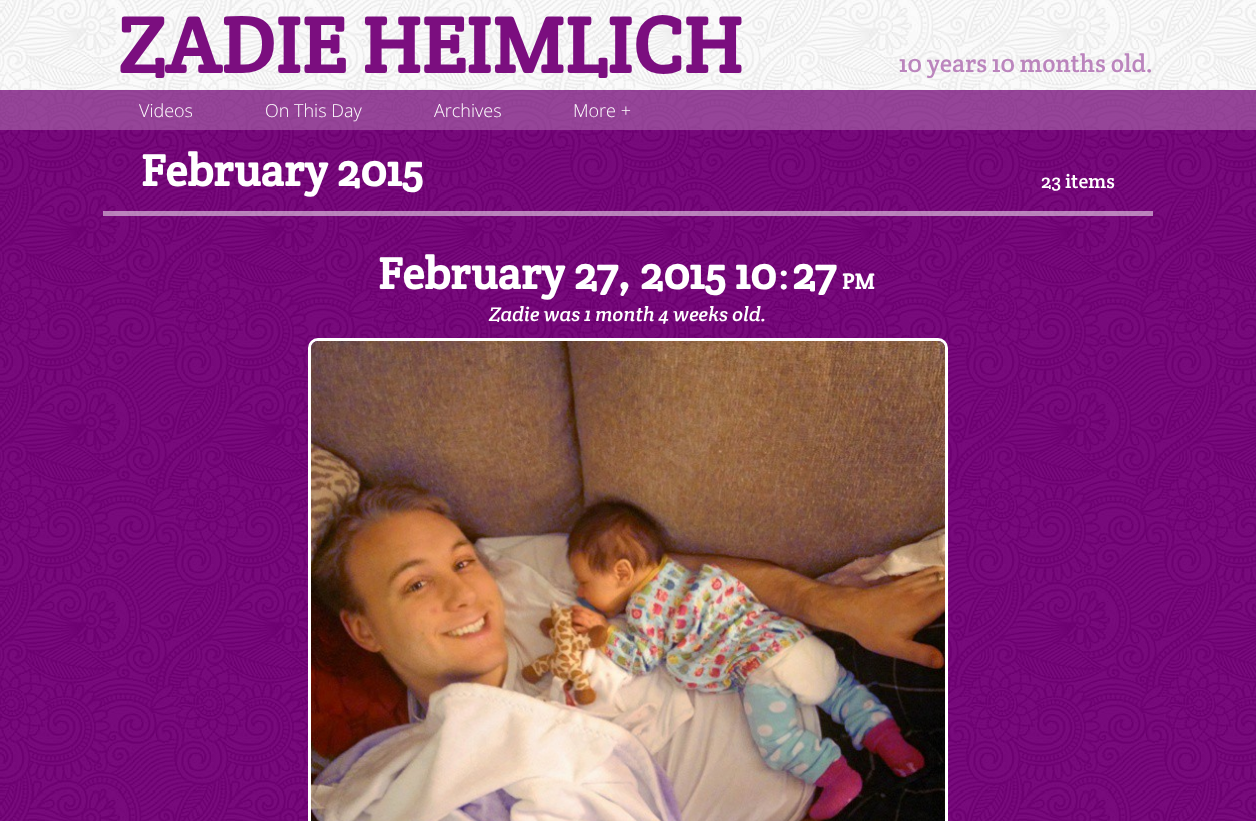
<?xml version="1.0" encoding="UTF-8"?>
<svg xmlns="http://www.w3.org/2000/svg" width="1256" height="821">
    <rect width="100%" height="100%" fill="#FFFFFF"/>
    <image x="0" y="90" width="1256" height="731" href="img_01.png"/>
    <image x="0" y="0" width="1256" height="90" href="img_02.png"/>
    <text x="118" y="73" font-family="Crete Round" font-size="80" font-weight="700" fill="#7B0E7F">ZADIE HEIMLICH</text>
    <text x="899" y="72" font-family="Crete Round" font-size="25" fill="#BB85BD">10 years 10 months old.</text>
    <rect x="0" y="90" width="1256" height="40" fill="#B47FB6" fill-opacity="0.5"/>
    <text x="139" y="117" font-family="Open Sans" font-size="18" font-weight="300" fill="#FFFFFF">Videos</text>
    <text x="265" y="117" font-family="Open Sans" font-size="18" font-weight="300" fill="#FFFFFF">On This Day</text>
    <text x="434" y="117" font-family="Open Sans" font-size="18" font-weight="300" fill="#FFFFFF">Archives</text>
    <text x="573" y="117" font-family="Open Sans" font-size="18" font-weight="300" fill="#FFFFFF">More +</text>
    <rect x="103" y="211" width="1050" height="5" fill="#FFFFFF" fill-opacity="0.5"/>
    <text x="141" y="186" font-family="Crete Round" font-size="45" font-weight="700" fill="#FFFFFF">February 2015</text>
    <text x="1041" y="188" font-family="Crete Round" font-size="20" fill="#FFFFFF">23 items</text>
    <text x="378" y="289" font-family="Crete Round" font-size="45" font-weight="700" fill="#FFFFFF">February 27, 2015 10</text>
    <text x="779" y="289" font-family="Crete Round" font-size="34" font-weight="700" fill="#FFFFFF">:</text>
    <text x="792" y="289" font-family="Crete Round" font-size="45" font-weight="700" fill="#FFFFFF">27</text>
    <text x="842" y="289" font-family="Crete Round" font-size="22" font-weight="700" fill="#FFFFFF">PM</text>
    <text x="489" y="321" font-family="Crete Round" font-size="20" font-style="italic" fill="#FFFFFF">Zadie was 1 month 4 weeks old.</text>
    <rect x="309.5" y="339.5" width="637" height="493" rx="8.5" fill="none" stroke="#FFFFFF" stroke-width="3"/>
    <image x="311" y="341" width="634" height="480" href="img_03.png"/>
</svg>
